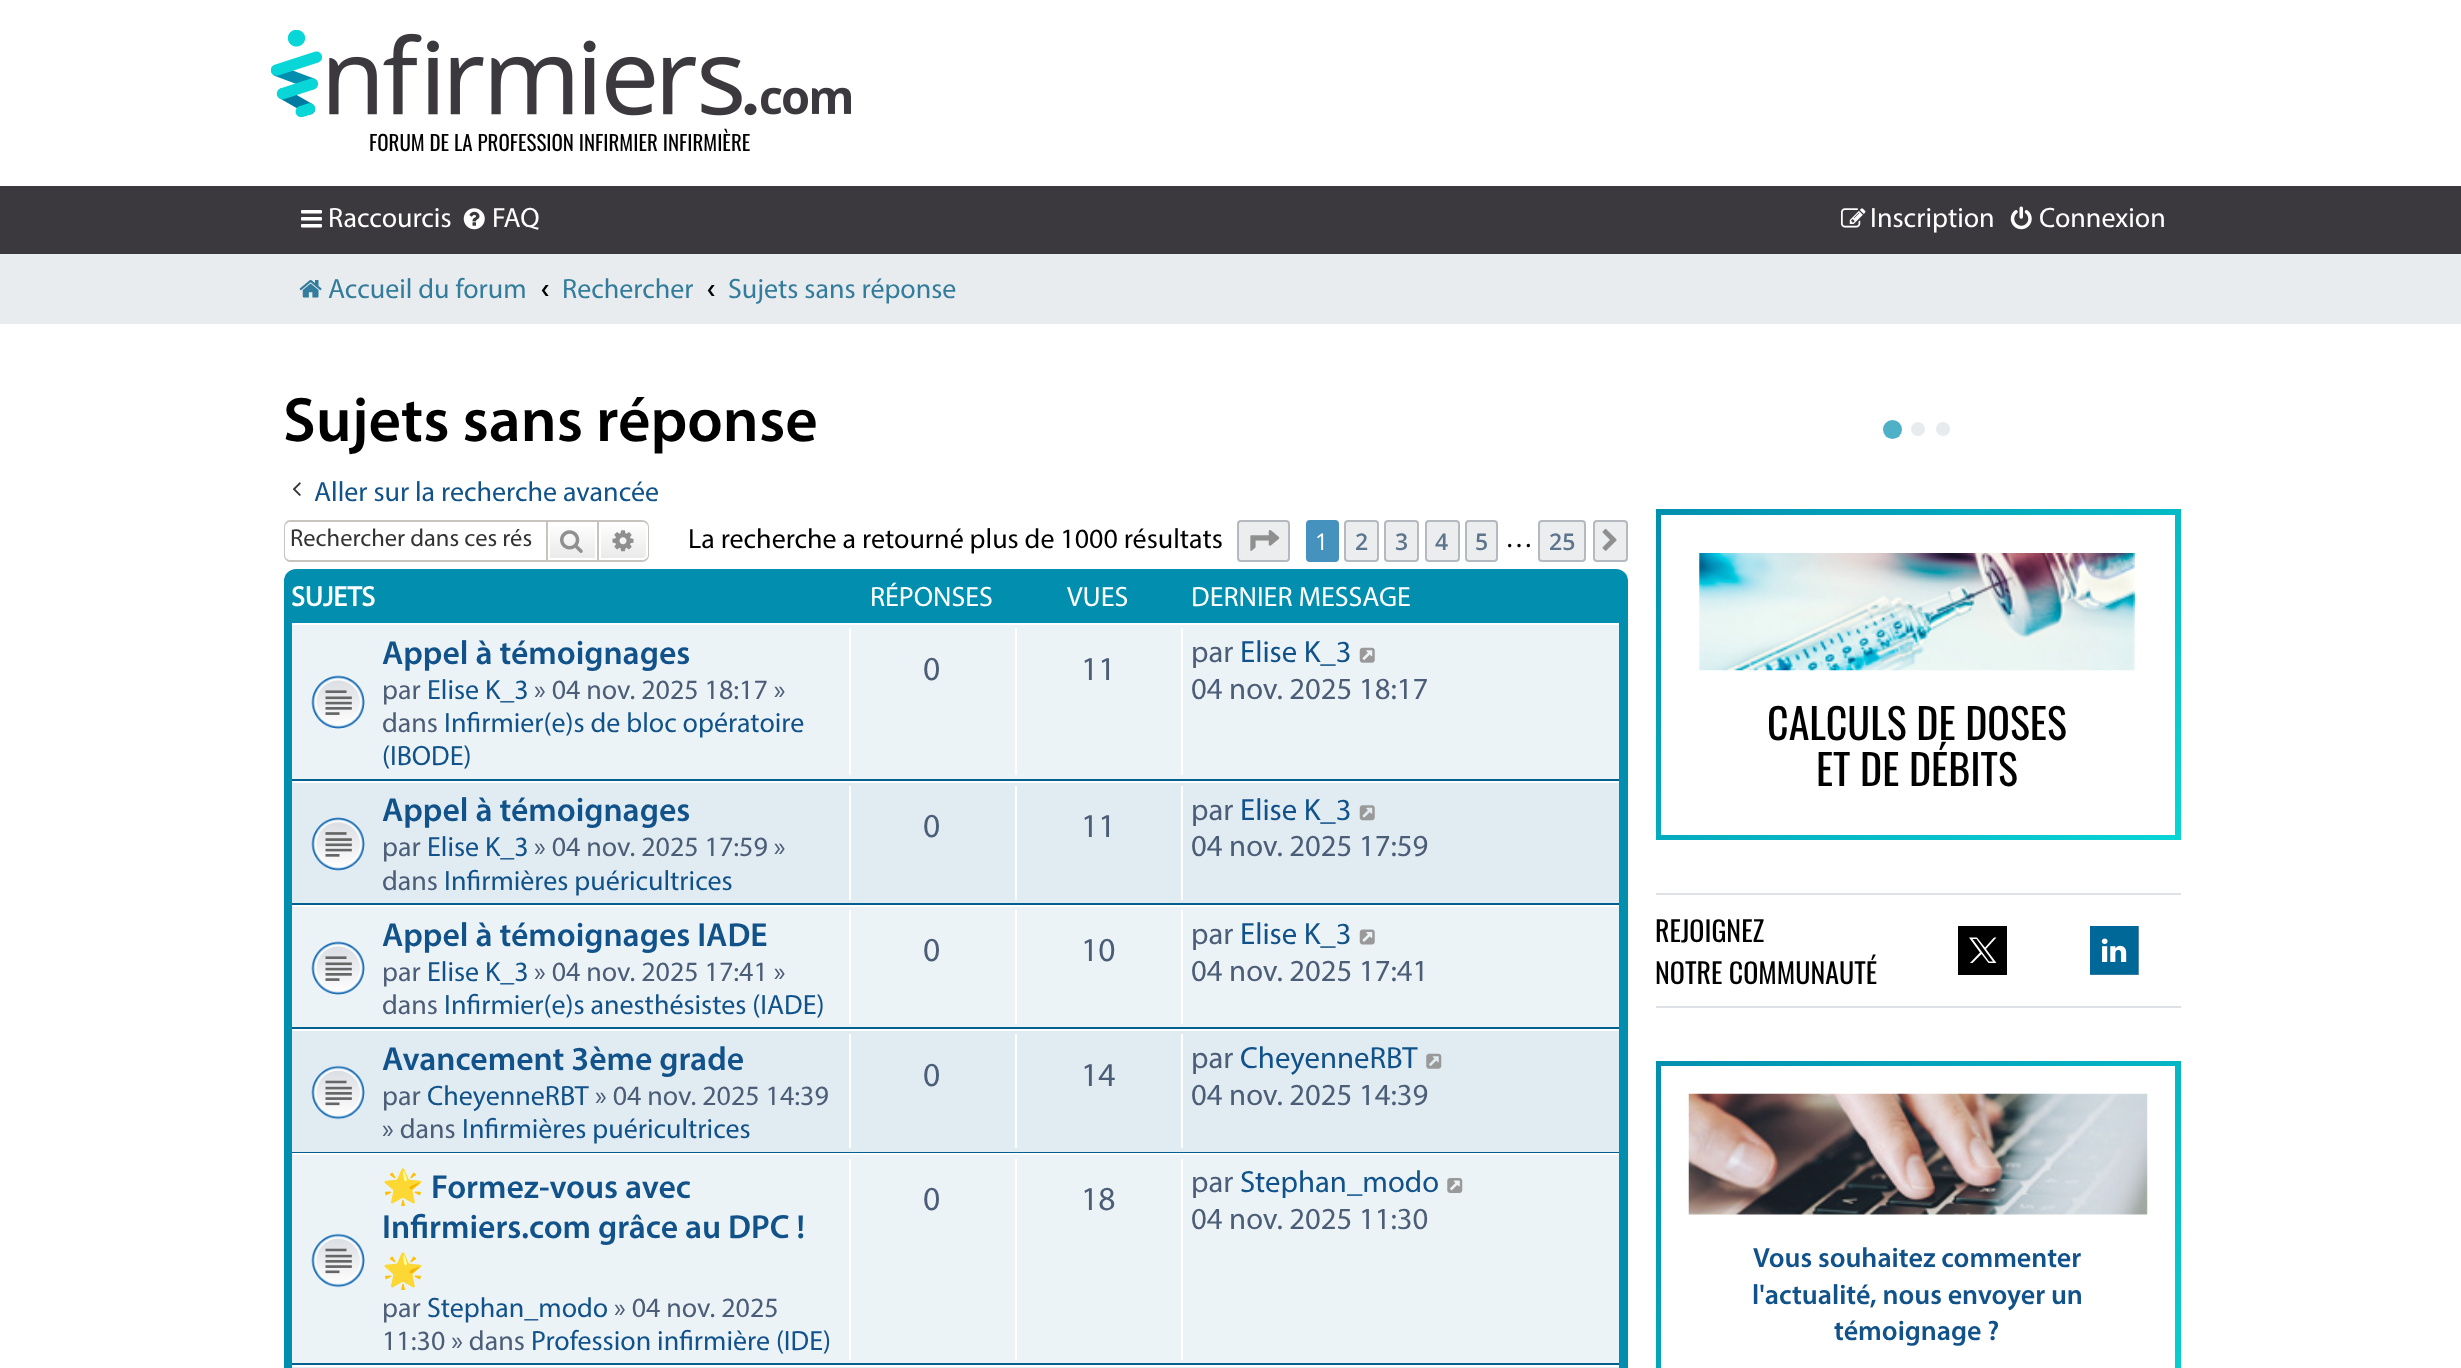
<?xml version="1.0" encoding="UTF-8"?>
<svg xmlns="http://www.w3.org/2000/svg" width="2461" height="1368">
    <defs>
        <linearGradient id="g1" gradientUnits="userSpaceOnUse" x1="572" y1="522" x2="572" y2="560"><stop offset="0" stop-color="#FFFFFF"/><stop offset="1" stop-color="#E9E9E9"/></linearGradient>
        <linearGradient id="g2" gradientUnits="userSpaceOnUse" x1="623" y1="522" x2="623" y2="560"><stop offset="0" stop-color="#FFFFFF"/><stop offset="1" stop-color="#E9E9E9"/></linearGradient>
        <linearGradient id="g3" gradientUnits="userSpaceOnUse" x1="1704" y1="461" x2="2132" y2="889"><stop offset="0" stop-color="#028FAF"/><stop offset="1" stop-color="#09D5D5"/></linearGradient>
        <linearGradient id="g4" gradientUnits="userSpaceOnUse" x1="1684" y1="1033" x2="2153" y2="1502"><stop offset="0" stop-color="#028FAF"/><stop offset="1" stop-color="#09D5D5"/></linearGradient>
    </defs>
    <rect width="100%" height="100%" fill="#FFFFFF"/>
    <image x="270" y="30" width="581" height="87" href="img_01.png"/>
    <text x="369" y="151" font-family="Oswald" font-size="21" fill="#000000">FORUM DE LA PROFESSION INFIRMIER INFIRMIÈRE</text>
    <rect x="0" y="186" width="2461" height="68" fill="#3B393E"/>
    <image x="301" y="210" width="21" height="18" href="img_02.png"/>
    <text x="328" y="227" font-family="Myriad" font-size="28" fill="#FFFFFF">Raccourcis</text>
    <image x="463" y="208" width="22" height="22" href="img_03.png"/>
    <text x="492" y="227" font-family="Myriad" font-size="28" fill="#FFFFFF">FAQ</text>
    <image x="1841" y="208" width="25" height="20" href="img_04.png"/>
    <text x="1870" y="227" font-family="Myriad" font-size="28" fill="#FFFFFF">Inscription</text>
    <image x="2010" y="206" width="22" height="24" href="img_05.png"/>
    <text x="2039" y="227" font-family="Myriad" font-size="28" fill="#FFFFFF">Connexion</text>
    <rect x="0" y="254" width="2461" height="70" fill="#E9ECEF"/>
    <image x="299" y="280" width="23" height="18" href="img_06.png"/>
    <text x="328" y="298" font-family="Myriad" font-size="28" fill="#337C9C">Accueil du forum</text>
    <text x="541" y="298" font-family="Myriad" font-size="28" font-weight="700" fill="#000000">‹</text>
    <text x="562" y="298" font-family="Myriad" font-size="28" fill="#337C9C">Rechercher</text>
    <text x="707" y="298" font-family="Myriad" font-size="28" font-weight="700" fill="#000000">‹</text>
    <text x="728" y="298" font-family="Myriad" font-size="28" fill="#337C9C">Sujets sans réponse</text>
    <text x="283" y="441" font-family="Myriad" font-size="63" font-weight="600" fill="#000000">Sujets sans réponse</text>
    <image x="292" y="482" width="9" height="14" href="img_07.png"/>
    <text x="314" y="501" font-family="Myriad" font-size="28" fill="#105289">Aller sur la recherche avancée</text>
    <path d="M 290 520 H 546 V 562 H 290 C 287 562 284 559 284 555 V 527 C 284 523 287 520 290 520 Z M 290 522 H 546 V 560 H 290 C 288 560 285 558 285 555 V 527 C 285 524 288 522 290 522 Z" fill="#C7C3BF" fill-rule="evenodd"/>
    <text x="290" y="546" font-family="Myriad" font-size="24.5" fill="#333333">Rechercher dans ces rés</text>
    <rect x="550" y="526" width="45" height="32" fill="url(#g1)"/>
    <rect x="547" y="521" width="51" height="40" fill="none" stroke="#C7C3BF" stroke-width="2"/>
    <image x="560" y="530" width="23" height="23" href="img_08.png"/>
    <path d="M 600 523 H 643 C 645 523 647 525 647 527 V 555 C 647 557 645 559 643 559 H 600 Z" fill="url(#g2)" stroke="#FFFFFF" stroke-width="2"/>
    <path d="M 598 520 H 642 C 646 520 649 523 649 527 V 555 C 649 559 646 562 642 562 H 598 Z M 598 522 H 642 C 645 522 648 524 648 527 V 555 C 648 558 645 560 642 560 H 598 Z" fill="#C7C3BF" fill-rule="evenodd"/>
    <image x="612" y="530" width="22" height="22" href="img_09.png"/>
    <text x="688" y="548" font-family="Myriad" font-size="28" fill="#000000">La recherche a retourné plus de 1000 résultats</text>
    <rect x="1238" y="521" width="51" height="40" rx="3" fill="#ECEDEE" stroke="#B4BAC0" stroke-width="2"/>
    <image x="1250" y="530" width="30" height="21" href="img_10.png"/>
    <rect x="1307" y="521" width="31" height="40" rx="3" fill="#4692BF" stroke="#4692BF" stroke-width="2"/>
    <text x="1315" y="550" font-family="Open Sans" font-size="23" fill="#FFFFFF">1</text>
    <rect x="1345" y="521" width="33" height="40" rx="3" fill="#ECEDEE" stroke="#B4BAC0" stroke-width="2"/>
    <text x="1355" y="550" font-family="Open Sans" font-size="23" font-weight="600" fill="#5C758C">2</text>
    <rect x="1385" y="521" width="33" height="40" rx="3" fill="#ECEDEE" stroke="#B4BAC0" stroke-width="2"/>
    <text x="1395" y="550" font-family="Open Sans" font-size="23" font-weight="600" fill="#5C758C">3</text>
    <rect x="1426" y="521" width="33" height="40" rx="3" fill="#ECEDEE" stroke="#B4BAC0" stroke-width="2"/>
    <text x="1435" y="550" font-family="Open Sans" font-size="23" font-weight="600" fill="#5C758C">4</text>
    <rect x="1466" y="521" width="31" height="40" rx="3" fill="#ECEDEE" stroke="#B4BAC0" stroke-width="2"/>
    <text x="1475" y="550" font-family="Open Sans" font-size="23" font-weight="600" fill="#5C758C">5</text>
    <text x="1505" y="547" font-family="Myriad" font-size="28" fill="#000000">…</text>
    <rect x="1539" y="521" width="46" height="40" rx="3" fill="#ECEDEE" stroke="#B4BAC0" stroke-width="2"/>
    <text x="1549" y="550" font-family="Open Sans" font-size="23" font-weight="600" fill="#5C758C">25</text>
    <rect x="1594" y="521" width="33" height="40" rx="3" fill="#ECEDEE" stroke="#B4BAC0" stroke-width="2"/>
    <image x="1602" y="528" width="15" height="23" href="img_11.png"/>
    <rect x="284" y="569" width="1344" height="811" rx="12" fill="#028FAF"/>
    <text x="291" y="606" font-family="Myriad" font-size="28" font-weight="700" fill="#FFFFFF">SUJETS</text>
    <text x="870" y="606" font-family="Myriad" font-size="28" fill="#FFFFFF">RÉPONSES</text>
    <text x="1067" y="606" font-family="Myriad" font-size="28" fill="#FFFFFF">VUES</text>
    <text x="1191" y="606" font-family="Myriad" font-size="28" fill="#FFFFFF">DERNIER MESSAGE</text>
    <rect x="292" y="625" width="1327" height="154" fill="#ECF3F7"/>
    <rect x="292" y="623" width="1327" height="2" fill="#FFFFFF"/>
    <rect x="292" y="779" width="1327" height="2" fill="#00608F"/>
    <image x="311" y="675" width="54" height="54" href="img_12.png"/>
    <text x="382" y="664" font-family="Myriad" font-size="33.6" font-weight="600" fill="#105289">Appel à témoignages</text>
    <text x="382" y="699" font-family="Myriad" font-size="28" fill="#4C5D77">par</text>
    <text x="427" y="699" font-family="Myriad" font-size="28" fill="#105289">Elise K_3</text>
    <text x="534" y="699" font-family="Myriad" font-size="28" fill="#4C5D77">» 04 nov. 2025 18:17 »</text>
    <text x="382" y="732" font-family="Myriad" font-size="28" fill="#4C5D77">dans</text>
    <text x="444" y="732" font-family="Myriad" font-size="28" fill="#105289">Infirmier(e)s de bloc opératoire</text>
    <text x="382" y="765" font-family="Myriad" font-size="28" fill="#105289">(IBODE)</text>
    <rect x="849" y="628" width="2" height="147" fill="#FFFFFF"/>
    <text x="923" y="680" font-family="Myriad" font-size="33.6" fill="#4C5D77">0</text>
    <rect x="1015" y="628" width="2" height="147" fill="#FFFFFF"/>
    <text x="1081" y="680" font-family="Myriad" font-size="33.6" fill="#4C5D77">11</text>
    <rect x="1181" y="628" width="2" height="147" fill="#FFFFFF"/>
    <text x="1191" y="662" font-family="Myriad" font-size="30.75" fill="#4C5D77">par</text>
    <text x="1240" y="662" font-family="Myriad" font-size="30.75" fill="#105289">Elise K_3</text>
    <image x="1359" y="647" width="16" height="16" href="img_13.png"/>
    <text x="1191" y="699" font-family="Myriad" font-size="30.75" fill="#4C5D77">04 nov. 2025 18:17</text>
    <rect x="292" y="783" width="1327" height="120" fill="#E1EBF2"/>
    <rect x="292" y="781" width="1327" height="2" fill="#FFFFFF"/>
    <rect x="292" y="903" width="1327" height="2" fill="#00608F"/>
    <image x="311" y="817" width="54" height="54" href="img_14.png"/>
    <text x="382" y="821" font-family="Myriad" font-size="33.6" font-weight="600" fill="#105289">Appel à témoignages</text>
    <text x="382" y="856" font-family="Myriad" font-size="28" fill="#4C5D77">par</text>
    <text x="427" y="856" font-family="Myriad" font-size="28" fill="#105289">Elise K_3</text>
    <text x="534" y="856" font-family="Myriad" font-size="28" fill="#4C5D77">» 04 nov. 2025 17:59 »</text>
    <text x="382" y="890" font-family="Myriad" font-size="28" fill="#4C5D77">dans</text>
    <text x="444" y="890" font-family="Myriad" font-size="28" fill="#105289">Infirmières puéricultrices</text>
    <rect x="849" y="786" width="2" height="114" fill="#FFFFFF"/>
    <text x="923" y="837" font-family="Myriad" font-size="33.6" fill="#4C5D77">0</text>
    <rect x="1015" y="786" width="2" height="114" fill="#FFFFFF"/>
    <text x="1081" y="837" font-family="Myriad" font-size="33.6" fill="#4C5D77">11</text>
    <rect x="1181" y="786" width="2" height="114" fill="#FFFFFF"/>
    <text x="1191" y="820" font-family="Myriad" font-size="30.75" fill="#4C5D77">par</text>
    <text x="1240" y="820" font-family="Myriad" font-size="30.75" fill="#105289">Elise K_3</text>
    <image x="1359" y="805" width="16" height="16" href="img_15.png"/>
    <text x="1191" y="856" font-family="Myriad" font-size="30.75" fill="#4C5D77">04 nov. 2025 17:59</text>
    <rect x="292" y="907" width="1327" height="120" fill="#ECF3F7"/>
    <rect x="292" y="905" width="1327" height="2" fill="#FFFFFF"/>
    <rect x="292" y="1027" width="1327" height="2" fill="#00608F"/>
    <image x="311" y="941" width="54" height="54" href="img_12.png"/>
    <text x="382" y="946" font-family="Myriad" font-size="33.6" font-weight="600" fill="#105289">Appel à témoignages IADE</text>
    <text x="382" y="981" font-family="Myriad" font-size="28" fill="#4C5D77">par</text>
    <text x="427" y="981" font-family="Myriad" font-size="28" fill="#105289">Elise K_3</text>
    <text x="534" y="981" font-family="Myriad" font-size="28" fill="#4C5D77">» 04 nov. 2025 17:41 »</text>
    <text x="382" y="1014" font-family="Myriad" font-size="28" fill="#4C5D77">dans</text>
    <text x="444" y="1014" font-family="Myriad" font-size="28" fill="#105289">Infirmier(e)s anesthésistes (IADE)</text>
    <rect x="849" y="910" width="2" height="114" fill="#FFFFFF"/>
    <text x="923" y="961" font-family="Myriad" font-size="33.6" fill="#4C5D77">0</text>
    <rect x="1015" y="910" width="2" height="114" fill="#FFFFFF"/>
    <text x="1081" y="961" font-family="Myriad" font-size="33.6" fill="#4C5D77">10</text>
    <rect x="1181" y="910" width="2" height="114" fill="#FFFFFF"/>
    <text x="1191" y="944" font-family="Myriad" font-size="30.75" fill="#4C5D77">par</text>
    <text x="1240" y="944" font-family="Myriad" font-size="30.75" fill="#105289">Elise K_3</text>
    <image x="1359" y="929" width="16" height="16" href="img_16.png"/>
    <text x="1191" y="981" font-family="Myriad" font-size="30.75" fill="#4C5D77">04 nov. 2025 17:41</text>
    <rect x="292" y="1031" width="1327" height="121" fill="#E1EBF2"/>
    <rect x="292" y="1029" width="1327" height="2" fill="#FFFFFF"/>
    <rect x="292" y="1152" width="1327" height="1" fill="#00608F"/>
    <image x="311" y="1065" width="54" height="55" href="img_17.png"/>
    <text x="382" y="1070" font-family="Myriad" font-size="33.6" font-weight="600" fill="#105289">Avancement 3ème grade</text>
    <text x="382" y="1105" font-family="Myriad" font-size="28" fill="#4C5D77">par</text>
    <text x="427" y="1105" font-family="Myriad" font-size="28" fill="#105289">CheyenneRBT</text>
    <text x="595" y="1105" font-family="Myriad" font-size="28" fill="#4C5D77">» 04 nov. 2025 14:39</text>
    <text x="382" y="1138" font-family="Myriad" font-size="28" fill="#4C5D77">» dans</text>
    <text x="462" y="1138" font-family="Myriad" font-size="28" fill="#105289">Infirmières puéricultrices</text>
    <rect x="849" y="1034" width="2" height="114" fill="#FFFFFF"/>
    <text x="923" y="1086" font-family="Myriad" font-size="33.6" fill="#4C5D77">0</text>
    <rect x="1015" y="1034" width="2" height="114" fill="#FFFFFF"/>
    <text x="1081" y="1086" font-family="Myriad" font-size="33.6" fill="#4C5D77">14</text>
    <rect x="1181" y="1034" width="2" height="114" fill="#FFFFFF"/>
    <text x="1191" y="1068" font-family="Myriad" font-size="30.75" fill="#4C5D77">par</text>
    <text x="1240" y="1068" font-family="Myriad" font-size="30.75" fill="#105289">CheyenneRBT</text>
    <image x="1426" y="1053" width="16" height="16" href="img_18.png"/>
    <text x="1191" y="1105" font-family="Myriad" font-size="30.75" fill="#4C5D77">04 nov. 2025 14:39</text>
    <rect x="292" y="1155" width="1327" height="208" fill="#ECF3F7"/>
    <rect x="292" y="1153" width="1327" height="2" fill="#FFFFFF"/>
    <rect x="292" y="1363" width="1327" height="2" fill="#00608F"/>
    <image x="311" y="1233" width="54" height="55" href="img_19.png"/>
    <text x="382" y="1198" font-family="Noto Color Emoji" font-size="33.6" fill="#105289">🌟</text>
    <text x="431" y="1198" font-family="Myriad" font-size="33.6" font-weight="600" fill="#105289">Formez-vous avec</text>
    <text x="382" y="1238" font-family="Myriad" font-size="33.6" font-weight="600" fill="#105289">Infirmiers.com grâce au DPC !</text>
    <text x="382" y="1282" font-family="Noto Color Emoji" font-size="33.6" fill="#105289">🌟</text>
    <text x="382" y="1317" font-family="Myriad" font-size="28" fill="#4C5D77">par</text>
    <text x="427" y="1317" font-family="Myriad" font-size="28" fill="#105289">Stephan_modo</text>
    <text x="614" y="1317" font-family="Myriad" font-size="28" fill="#4C5D77">» 04 nov. 2025</text>
    <text x="382" y="1350" font-family="Myriad" font-size="28" fill="#4C5D77">11:30 » dans</text>
    <text x="531" y="1350" font-family="Myriad" font-size="28" fill="#105289">Profession infirmière (IDE)</text>
    <rect x="849" y="1159" width="2" height="201" fill="#FFFFFF"/>
    <text x="923" y="1210" font-family="Myriad" font-size="33.6" fill="#4C5D77">0</text>
    <rect x="1015" y="1159" width="2" height="201" fill="#FFFFFF"/>
    <text x="1081" y="1210" font-family="Myriad" font-size="33.6" fill="#4C5D77">18</text>
    <rect x="1181" y="1159" width="2" height="201" fill="#FFFFFF"/>
    <text x="1191" y="1192" font-family="Myriad" font-size="30.75" fill="#4C5D77">par</text>
    <text x="1240" y="1192" font-family="Myriad" font-size="30.75" fill="#105289">Stephan_modo</text>
    <image x="1447" y="1178" width="16" height="15" href="img_20.png"/>
    <text x="1191" y="1229" font-family="Myriad" font-size="30.75" fill="#4C5D77">04 nov. 2025 11:30</text>
    <rect x="292" y="1367" width="1327" height="1" fill="#E1EBF2"/>
    <rect x="292" y="1365" width="1327" height="2" fill="#FFFFFF"/>
    <circle cx="1892.5" cy="429.5" r="9.5" fill="#4EB1C7"/>
    <circle cx="1918" cy="429" r="7" fill="#E8EBEE"/>
    <circle cx="1943" cy="429" r="7" fill="#E8EBEE"/>
    <rect x="1656" y="509" width="525" height="331" fill="url(#g3)"/>
    <rect x="1661" y="515" width="514" height="320" fill="#FFFFFF"/>
    <image x="1699" y="553" width="436" height="118" href="img_21.png"/>
    <text x="1767" y="740" font-family="Oswald" font-size="42" fill="#000000">CALCULS DE DOSES</text>
    <text x="1816" y="786" font-family="Oswald" font-size="42" fill="#000000">ET DE DÉBITS</text>
    <rect x="1656" y="893" width="525" height="2" fill="#DEE2E6"/>
    <rect x="1656" y="1006" width="525" height="2" fill="#DEE2E6"/>
    <text font-family="Oswald" font-size="28" fill="#000000">
        <tspan x="1655" y="942">REJOIGNEZ</tspan>
        <tspan x="1655" y="984">NOTRE COMMUNAUTÉ</tspan>
    </text>
    <rect x="1958" y="926" width="49" height="49" fill="#000000"/>
    <path d="M 1996.5 963 L 1986 949 L 1996.5 937.5 H 1994 L 1985 947.5 L 1977 937.5 H 1969 L 1980 952.5 L 1970 963 H 1972.5 L 1981.5 954 L 1988.5 963 Z M 1993 961.5 H 1989 L 1972.5 939 H 1976.5 Z" fill="#FFFFFF"/>
    <rect x="2090" y="926" width="49" height="49" fill="#ADB5BD"/>
    <image x="2090" y="926" width="49" height="49" href="img_22.png"/>
    <rect x="1656" y="1061" width="525" height="307" fill="url(#g4)"/>
    <rect x="1661" y="1066" width="514" height="302" fill="#FFFFFF"/>
    <image x="1688" y="1093" width="460" height="122" href="img_23.png"/>
    <text x="1753" y="1267" font-family="Myriad" font-size="28" font-weight="600" fill="#105289">Vous souhaitez commenter</text>
    <text x="1752" y="1304" font-family="Myriad" font-size="28" font-weight="600" fill="#105289">l'actualité, nous envoyer un</text>
    <text x="1834" y="1340" font-family="Myriad" font-size="28" font-weight="600" fill="#105289">témoignage ?</text>
</svg>
